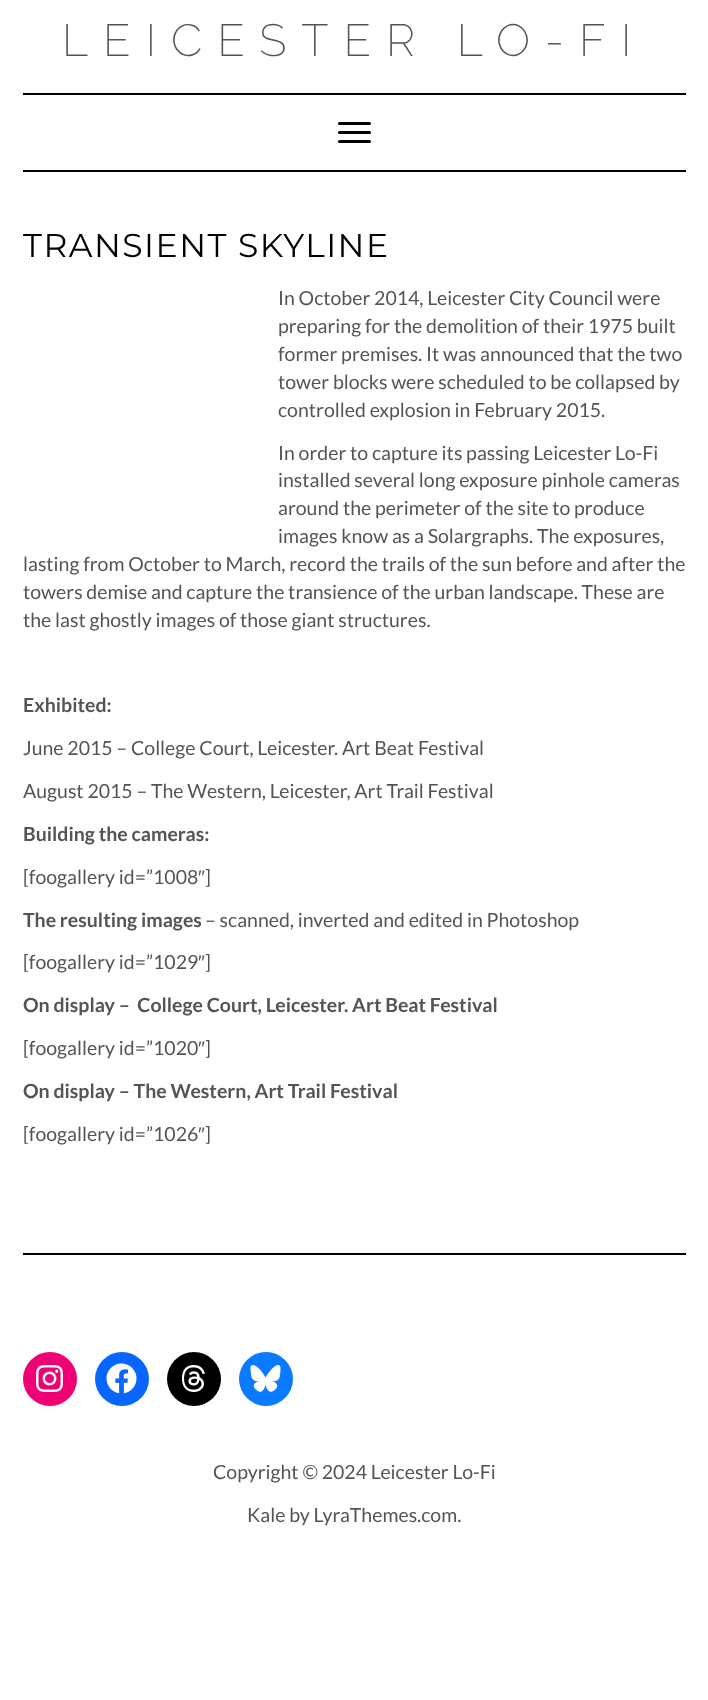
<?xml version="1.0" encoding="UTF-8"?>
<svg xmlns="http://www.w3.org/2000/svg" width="708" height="1700">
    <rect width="100%" height="100%" fill="#FFFFFF"/>
    <text x="62" y="56" font-family="Raleway" font-size="45" font-weight="100" letter-spacing="15" fill="#545454">LEICESTER LO-FI</text>
    <rect x="23" y="93" width="663" height="2" fill="#000000"/>
    <rect x="23" y="170" width="663" height="2" fill="#000000"/>
    <rect x="338" y="122" width="33" height="3" rx="1.5" fill="#000000"/>
    <rect x="338" y="131" width="33" height="3" rx="1.5" fill="#000000"/>
    <rect x="338" y="140" width="33" height="3" rx="1.5" fill="#000000"/>
    <text x="23" y="257" font-family="Montserrat" font-size="33" letter-spacing="1.5" fill="#000000">TRANSIENT SKYLINE</text>
    <text font-family="Lato" font-size="19.5" fill="#545454">
        <tspan x="278" y="305">In October 2014, Leicester City Council were</tspan>
        <tspan x="278" y="333">preparing for the demolition of their 1975 built</tspan>
        <tspan x="278" y="361">former premises. It was announced that the two</tspan>
        <tspan x="278" y="389">tower blocks were scheduled to be collapsed by</tspan>
        <tspan x="278" y="417">controlled explosion in February 2015.</tspan>
    </text>
    <text font-family="Lato" font-size="19.5" fill="#545454">
        <tspan x="278" y="460">In order to capture its passing Leicester Lo-Fi</tspan>
        <tspan x="278" y="487">installed several long exposure pinhole cameras</tspan>
        <tspan x="278" y="515">around the perimeter of the site to produce</tspan>
        <tspan x="278" y="543">images know as a Solargraphs. The exposures,</tspan>
    </text>
    <text font-family="Lato" font-size="19.5" fill="#545454">
        <tspan x="23" y="571">lasting from October to March, record the trails of the sun before and after the</tspan>
        <tspan x="23" y="599">towers demise and capture the transience of the urban landscape. These are</tspan>
        <tspan x="23" y="627">the last ghostly images of those giant structures.</tspan>
    </text>
    <text x="23" y="712" font-family="Lato" font-size="19.5" font-weight="700" fill="#545454">Exhibited:</text>
    <text x="23" y="755" font-family="Lato" font-size="19.5" fill="#545454">June 2015 – College Court, Leicester. Art Beat Festival</text>
    <text x="23" y="798" font-family="Lato" font-size="19.5" fill="#545454">August 2015 – The Western, Leicester, Art Trail Festival</text>
    <text x="23" y="841" font-family="Lato" font-size="19.5" font-weight="700" fill="#545454">Building the cameras:</text>
    <text x="23" y="884" font-family="Lato" font-size="19.5" fill="#545454">[foogallery id=”1008</text>
    <text x="198" y="884" font-family="Liberation Sans" font-size="19.5" fill="#545454">″</text>
    <text x="205" y="884" font-family="Lato" font-size="19.5" fill="#545454">]</text>
    <text x="23" y="927" font-family="Lato" font-size="19.5" font-weight="700" fill="#545454">The resulting images</text>
    <text x="205" y="927" font-family="Lato" font-size="19.5" fill="#545454">– scanned, inverted and edited in Photoshop</text>
    <text x="23" y="969" font-family="Lato" font-size="19.5" fill="#545454">[foogallery id=”1029</text>
    <text x="198" y="969" font-family="Liberation Sans" font-size="19.5" fill="#545454">″</text>
    <text x="205" y="969" font-family="Lato" font-size="19.5" fill="#545454">]</text>
    <text x="23" y="1012" font-family="Lato" font-size="19.5" font-weight="700" fill="#545454" xml:space="preserve">On display –  College Court, Leicester. Art Beat Festival</text>
    <text x="23" y="1055" font-family="Lato" font-size="19.5" fill="#545454">[foogallery id=”1020</text>
    <text x="198" y="1055" font-family="Liberation Sans" font-size="19.5" fill="#545454">″</text>
    <text x="205" y="1055" font-family="Lato" font-size="19.5" fill="#545454">]</text>
    <text x="23" y="1098" font-family="Lato" font-size="19.5" font-weight="700" fill="#545454">On display – The Western, Art Trail Festival</text>
    <text x="23" y="1141" font-family="Lato" font-size="19.5" fill="#545454">[foogallery id=”1026</text>
    <text x="198" y="1141" font-family="Liberation Sans" font-size="19.5" fill="#545454">″</text>
    <text x="205" y="1141" font-family="Lato" font-size="19.5" fill="#545454">]</text>
    <rect x="23" y="1253" width="663" height="2" fill="#000000"/>
    <circle cx="50" cy="1379" r="27" fill="#F00075"/>
    <image x="36" y="1365" width="27" height="27" href="img_01.png"/>
    <circle cx="122" cy="1379" r="27" fill="#0866FF"/>
    <image x="106" y="1363" width="31" height="31" href="img_02.png"/>
    <circle cx="194" cy="1379" r="27" fill="#000000"/>
    <image x="181" y="1365" width="24" height="27" href="img_03.png"/>
    <circle cx="266" cy="1379" r="27" fill="#0A7AFF"/>
    <image x="250" y="1365" width="31" height="27" href="img_04.png"/>
    <text x="213" y="1479" font-family="Lato" font-size="19.5" fill="#545454">Copyright © 2024 Leicester Lo-Fi</text>
    <text x="247" y="1522" font-family="Lato" font-size="19.5" fill="#545454">Kale by LyraThemes.com.</text>
</svg>
